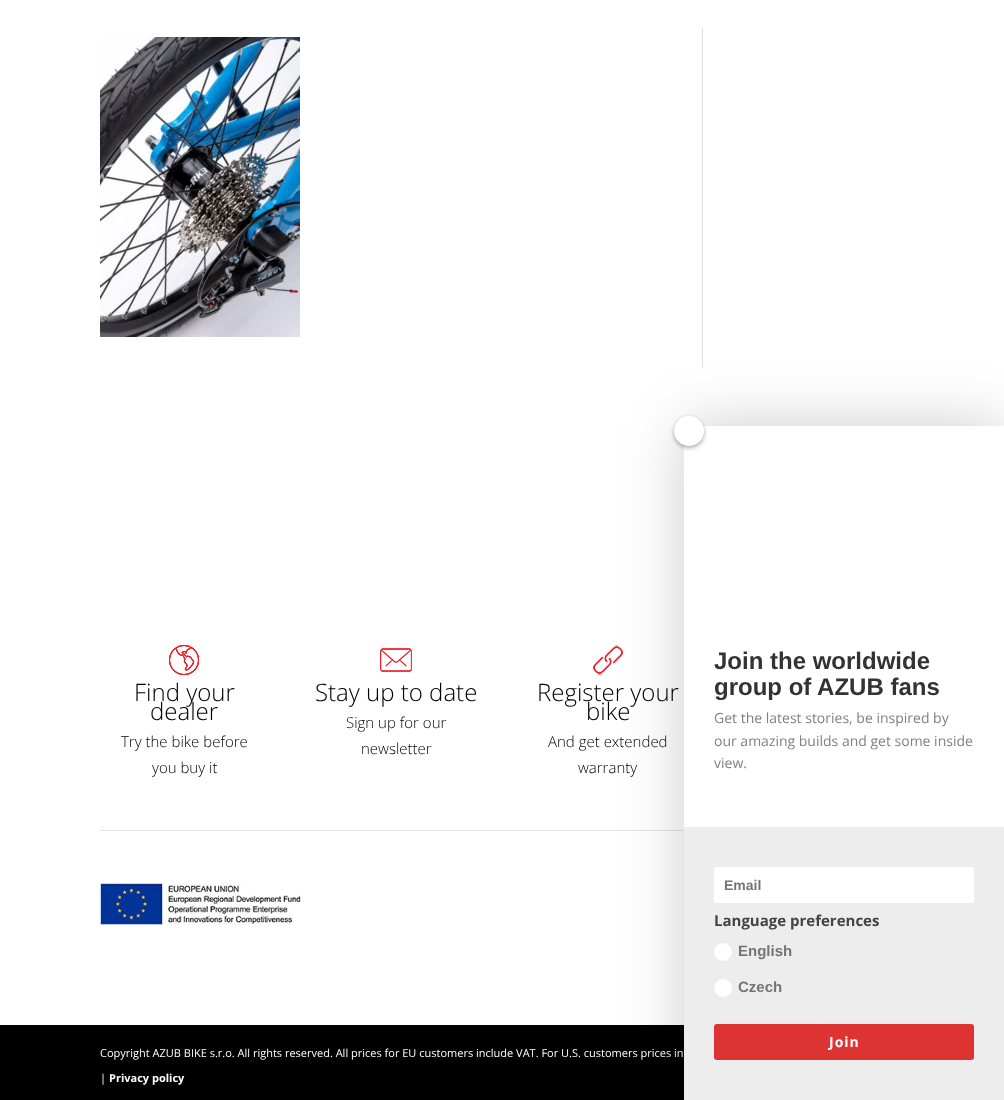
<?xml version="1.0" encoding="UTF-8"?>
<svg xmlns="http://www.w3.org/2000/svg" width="1004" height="1100">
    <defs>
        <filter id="blur1" x="-50%" y="-200%" width="200%" height="500%"><feGaussianBlur stdDeviation="30"/></filter>
        <filter id="blur2" x="-50%" y="-200%" width="200%" height="500%"><feGaussianBlur stdDeviation="2"/></filter>
    </defs>
    <rect width="100%" height="100%" fill="#FFFFFF"/>
    <image x="100" y="37" width="200" height="300" href="img_01.png"/>
    <rect x="702" y="28" width="1" height="340" fill="#E2E2E2"/>
    <rect x="0" y="1025" width="684" height="75" fill="#000000"/>
    <image x="169" y="645" width="30" height="30" href="img_02.png"/>
    <text x="134" y="701" font-family="Open Sans" font-size="24" font-weight="300" fill="#000000">Find your</text>
    <text x="150" y="720" font-family="Open Sans" font-size="24" font-weight="300" fill="#000000">dealer</text>
    <text x="121" y="747" font-family="Open Sans" font-size="15" font-weight="300" fill="#000000">Try the bike before</text>
    <text x="152" y="773" font-family="Open Sans" font-size="15" font-weight="300" fill="#000000">you buy it</text>
    <image x="380" y="648" width="32" height="24" href="img_03.png"/>
    <text x="315" y="701" font-family="Open Sans" font-size="24" font-weight="300" fill="#000000">Stay up to date</text>
    <text x="346" y="728" font-family="Open Sans" font-size="15" font-weight="300" fill="#000000">Sign up for our</text>
    <text x="361" y="754" font-family="Open Sans" font-size="15" font-weight="300" fill="#000000">newsletter</text>
    <image x="593" y="645" width="30" height="30" href="img_04.png"/>
    <text x="537" y="701" font-family="Open Sans" font-size="24" font-weight="300" fill="#000000">Register your</text>
    <text x="586" y="720" font-family="Open Sans" font-size="24" font-weight="300" fill="#000000">bike</text>
    <text x="548" y="747" font-family="Open Sans" font-size="15" font-weight="300" fill="#000000">And get extended</text>
    <text x="578" y="773" font-family="Open Sans" font-size="15" font-weight="300" fill="#000000">warranty</text>
    <rect x="100" y="830" width="584" height="1" fill="#E4E4E4"/>
    <image x="100" y="883" width="201" height="42" href="img_05.png"/>
    <text x="100" y="1057" font-family="Open Sans" font-size="11" fill="#FFFFFF">Copyright AZUB BIKE s.r.o. All rights reserved. All prices for EU customers include VAT. For U.S. customers prices in</text>
    <text x="100" y="1082" font-family="Open Sans" font-size="11" fill="#FFFFFF">|</text>
    <text x="109" y="1082" font-family="Open Sans" font-size="11" font-weight="700" fill="#FFFFFF">Privacy policy</text>
    <rect x="684" y="426" width="320" height="674" fill="#000000" fill-opacity="0.2" filter="url(#blur1)"/>
    <rect x="684" y="426" width="320" height="401" fill="#FFFFFF"/>
    <rect x="674" y="418" width="30" height="30" rx="15" fill="#000000" fill-opacity="0.34" filter="url(#blur2)"/>
    <circle cx="689" cy="431" r="15" fill="#FFFFFF"/>
    <text font-family="Liberation Sans" font-size="24" font-weight="700" fill="#333333">
        <tspan x="714" y="669">Join the worldwide</tspan>
        <tspan x="714" y="695">group of AZUB fans</tspan>
    </text>
    <text font-family="Open Sans" font-size="14" fill="#808080">
        <tspan x="714" y="723">Get the latest stories, be inspired by</tspan>
        <tspan x="714" y="746">our amazing builds and get some inside</tspan>
        <tspan x="714" y="768">view.</tspan>
    </text>
    <rect x="684" y="827" width="320" height="273" fill="#EDEDED"/>
    <rect x="714" y="867" width="260" height="36" rx="3" fill="#FFFFFF"/>
    <text x="724" y="890" font-family="Liberation Sans" font-size="14" font-weight="700" fill="#757575">Email</text>
    <text x="714" y="926" font-family="Open Sans" font-size="15" font-weight="700" fill="#444444">Language preferences</text>
    <circle cx="723" cy="952" r="9" fill="#FFFFFF"/>
    <text x="738" y="956" font-family="Liberation Sans" font-size="15" font-weight="700" fill="#757575">English</text>
    <circle cx="723" cy="988" r="9" fill="#FFFFFF"/>
    <text x="738" y="992" font-family="Liberation Sans" font-size="15" font-weight="700" fill="#757575">Czech</text>
    <rect x="714" y="1024" width="260" height="36" rx="3" fill="#DD3333"/>
    <text x="829" y="1047" font-family="Open Sans" font-size="14" font-weight="700" letter-spacing="1" fill="#FFFFFF">Join</text>
</svg>
